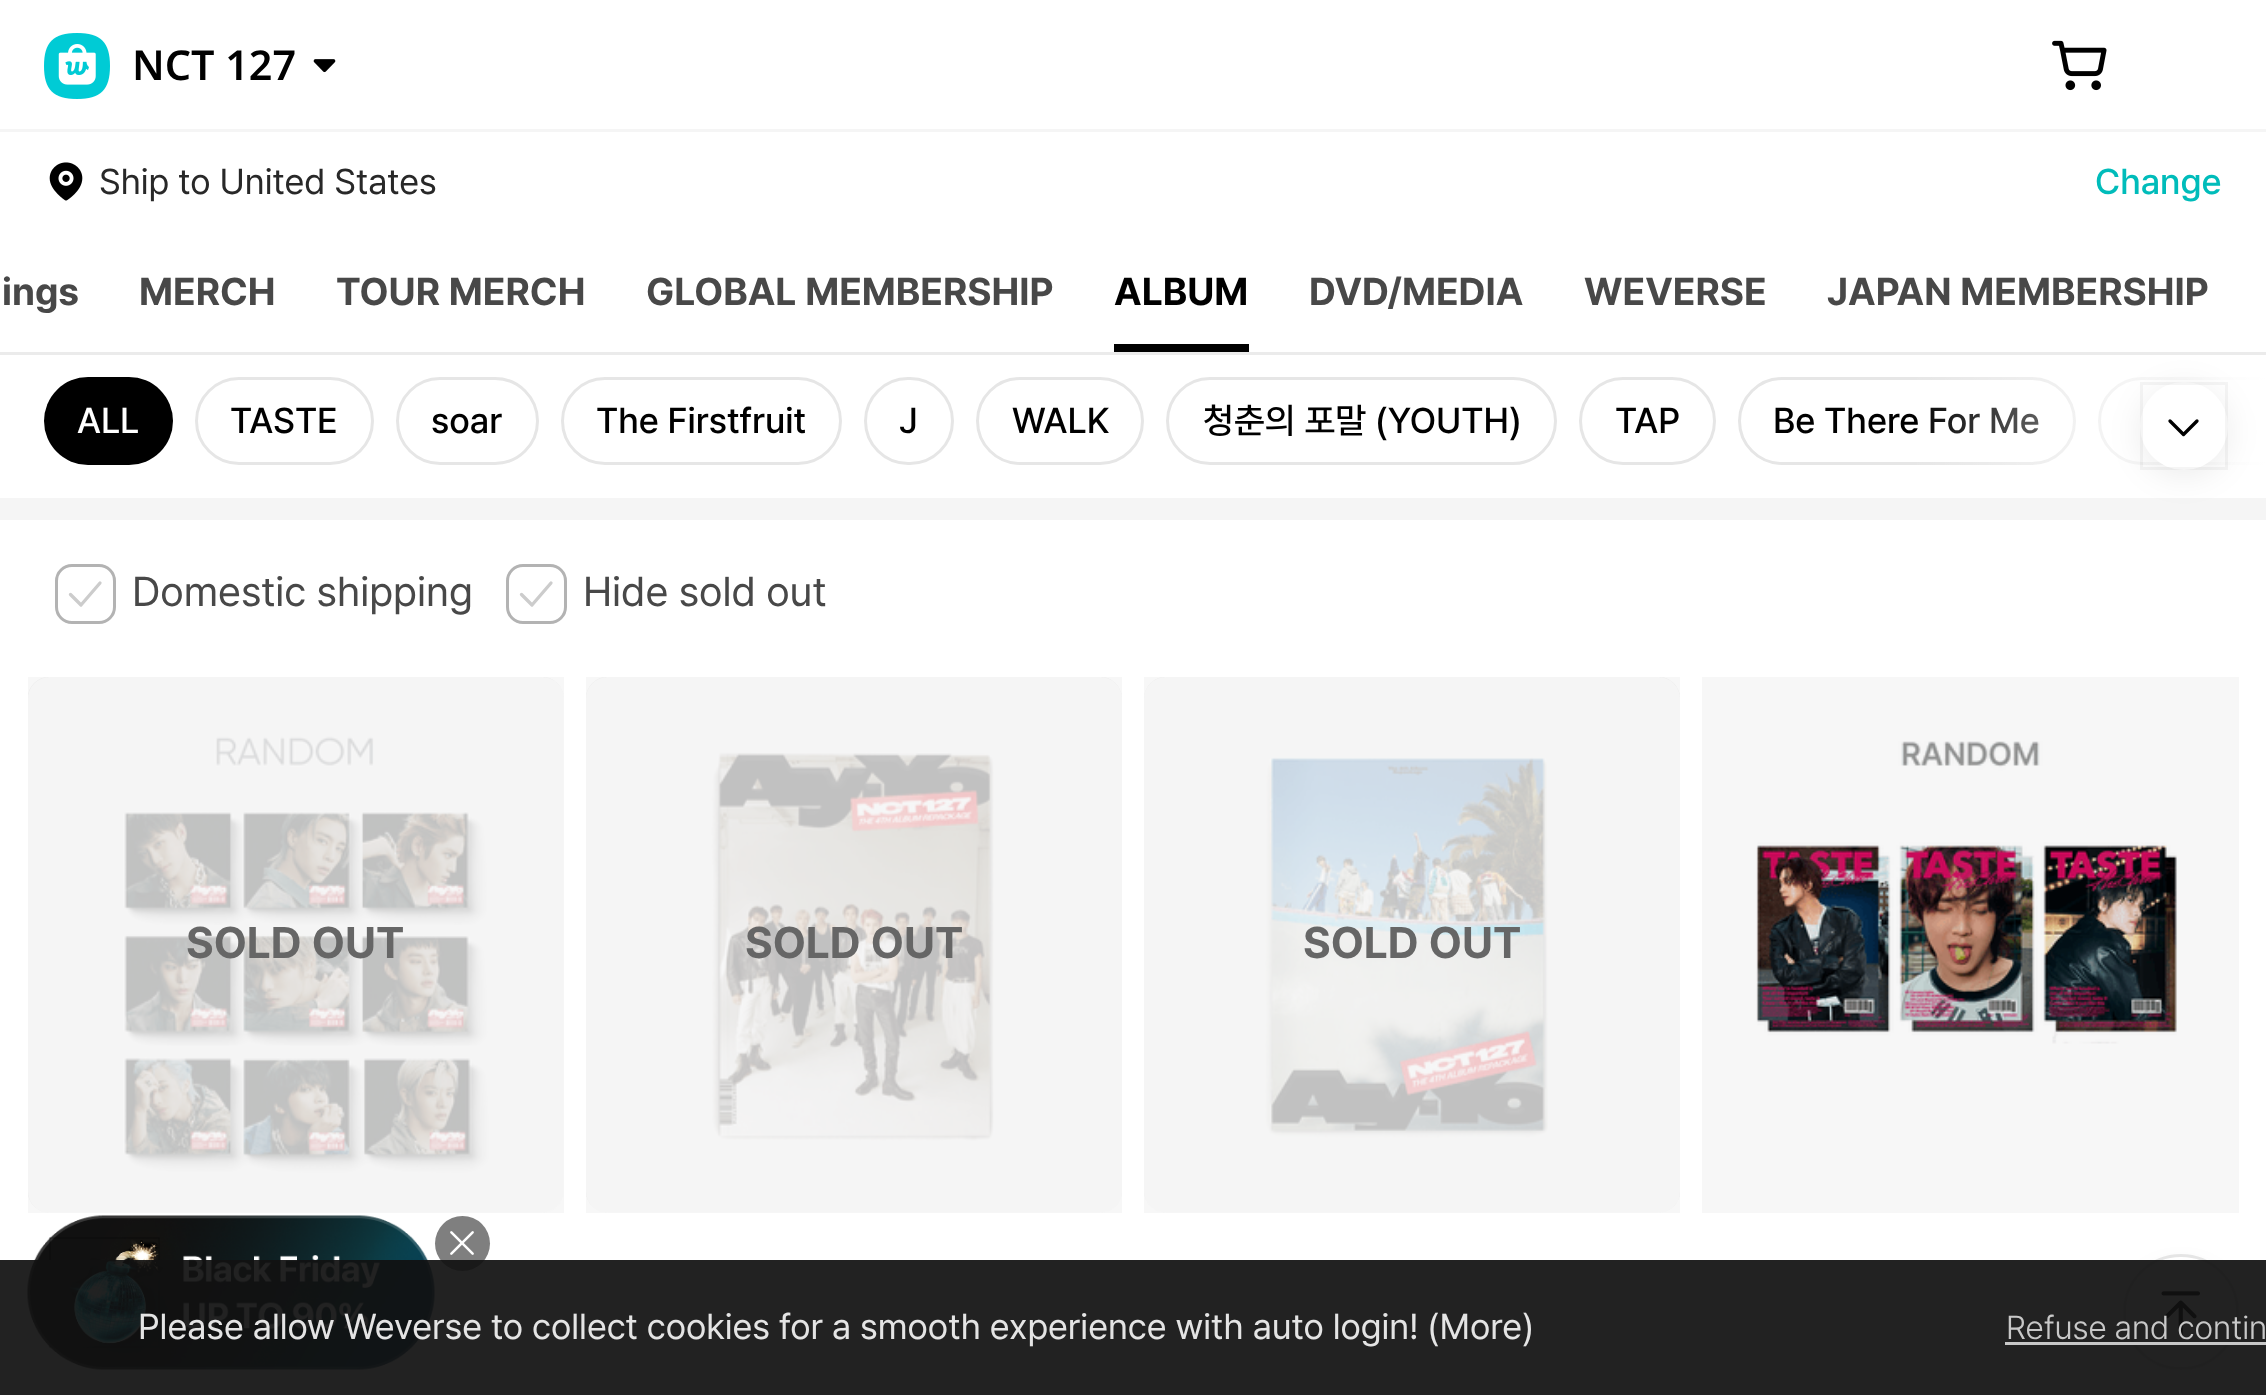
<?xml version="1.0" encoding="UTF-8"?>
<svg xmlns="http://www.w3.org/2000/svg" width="2266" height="1395">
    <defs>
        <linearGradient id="g1" gradientUnits="userSpaceOnUse" x1="2266" y1="426" x2="1909" y2="426"><stop offset="0" stop-color="#FFFFFF"/><stop offset="1" stop-color="#FFFFFF" stop-opacity="0"/></linearGradient>
        <filter id="blur1" x="-50%" y="-200%" width="200%" height="500%"><feGaussianBlur stdDeviation="16.5"/></filter>
        <filter id="blur2" x="-50%" y="-200%" width="200%" height="500%"><feGaussianBlur stdDeviation="11"/></filter>
    </defs>
    <rect width="100%" height="100%" fill="#FFFFFF"/>
    <rect x="0" y="129" width="2266" height="3" fill="#F5F5F5"/>
    <image x="44" y="33" width="66" height="66" href="img_01.png"/>
    <text x="132" y="80" font-family="Noto Sans" font-size="41.25" font-weight="600" fill="#000000">NCT 127</text>
    <image x="313" y="59" width="23" height="14" href="img_02.png"/>
    <image x="2052" y="40" width="55" height="51" href="img_03.png"/>
    <image x="49" y="162" width="34" height="39" href="img_04.png"/>
    <text x="99" y="194" font-family="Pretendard" font-size="35.75" fill="#282828">Ship to United States</text>
    <text x="2095" y="194" font-family="Pretendard" font-size="35.75" font-weight="500" fill="#00BCBA">Change</text>
    <rect x="0" y="352" width="2266" height="3" fill="#EBEBEB"/>
    <text x="2" y="305" font-family="Pretendard" font-size="38.5" font-weight="700" fill="#484848">ings</text>
    <text x="139" y="305" font-family="Pretendard" font-size="38.5" font-weight="700" fill="#484848">MERCH</text>
    <text x="336" y="305" font-family="Pretendard" font-size="38.5" font-weight="700" fill="#484848">TOUR MERCH</text>
    <text x="646" y="305" font-family="Pretendard" font-size="38.5" font-weight="700" fill="#484848">GLOBAL MEMBERSHIP</text>
    <text x="1114" y="305" font-family="Pretendard" font-size="38.5" font-weight="700" fill="#000000">ALBUM</text>
    <rect x="1114" y="344" width="135" height="8" fill="#000000"/>
    <text x="1309" y="305" font-family="Pretendard" font-size="38.5" font-weight="700" fill="#484848">DVD/MEDIA</text>
    <text x="1584" y="305" font-family="Pretendard" font-size="38.5" font-weight="700" fill="#484848">WEVERSE</text>
    <text x="1827" y="305" font-family="Pretendard" font-size="38.5" font-weight="700" fill="#484848">JAPAN MEMBERSHIP</text>
    <rect x="44" y="377" width="129" height="88" rx="44" fill="#000000"/>
    <text x="77" y="433" font-family="Pretendard" font-size="35.75" font-weight="500" fill="#FFFFFF">ALL</text>
    <rect x="196.5" y="378.5" width="176" height="85" rx="42.5" fill="none" stroke="#E6E6E6" stroke-width="3"/>
    <text x="230" y="433" font-family="Pretendard" font-size="35.75" font-weight="500" fill="#000000">TASTE</text>
    <rect x="397.5" y="378.5" width="140" height="85" rx="42.5" fill="none" stroke="#E6E6E6" stroke-width="3"/>
    <text x="431" y="433" font-family="Pretendard" font-size="35.75" font-weight="500" fill="#000000">soar</text>
    <rect x="562.5" y="378.5" width="278" height="85" rx="42.5" fill="none" stroke="#E6E6E6" stroke-width="3"/>
    <text x="596" y="433" font-family="Pretendard" font-size="35.75" font-weight="500" fill="#000000">The Firstfruit</text>
    <rect x="865.5" y="378.5" width="87" height="85" rx="42.5" fill="none" stroke="#E6E6E6" stroke-width="3"/>
    <text x="899" y="433" font-family="Pretendard" font-size="35.75" font-weight="500" fill="#000000">J</text>
    <rect x="977.5" y="378.5" width="165" height="85" rx="42.5" fill="none" stroke="#E6E6E6" stroke-width="3"/>
    <text x="1012" y="433" font-family="Pretendard" font-size="35.75" font-weight="500" fill="#000000">WALK</text>
    <rect x="1167.5" y="378.5" width="388" height="85" rx="42.5" fill="none" stroke="#E6E6E6" stroke-width="3"/>
    <text x="1203" y="433" font-family="Pretendard" font-size="35.75" font-weight="500" fill="#000000">청춘의 포말 (YOUTH)</text>
    <rect x="1580.5" y="378.5" width="134" height="85" rx="42.5" fill="none" stroke="#E6E6E6" stroke-width="3"/>
    <text x="1615" y="433" font-family="Pretendard" font-size="35.75" font-weight="500" fill="#000000">TAP</text>
    <rect x="1739.5" y="378.5" width="335" height="85" rx="42.5" fill="none" stroke="#E6E6E6" stroke-width="3"/>
    <text x="1773" y="433" font-family="Pretendard" font-size="35.75" font-weight="500" fill="#000000">Be There For Me</text>
    <rect x="2099.5" y="378.5" width="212" height="85" rx="42.5" fill="none" stroke="#E6E6E6" stroke-width="3"/>
    <rect x="1917" y="377" width="349" height="88" fill="url(#g1)"/>
    <rect x="0" y="498" width="2266" height="22" fill="#F5F5F5"/>
    <rect x="2140" y="388" width="88" height="88" rx="44" fill="#000000" fill-opacity="0.08" filter="url(#blur1)"/>
    <circle cx="2184" cy="426" r="44" fill="#FFFFFF"/>
    <rect x="2141.5" y="383.5" width="85" height="85" fill="none" stroke="#000000" stroke-opacity="0.04" stroke-width="3"/>
    <path d="M 2170 421 L 2183.5 434.5 L 2197 421" fill="none" stroke="#000000" stroke-width="3.3" stroke-linecap="round" stroke-linejoin="round"/>
    <rect x="56.5" y="565.5" width="58" height="57" rx="15.5" fill="none" stroke="#B3B3B3" stroke-width="3"/>
    <path d="M 70.5 594.5 L 81 605 L 100 583" fill="none" stroke="#CCCCCC" stroke-width="3.3" stroke-linecap="round" stroke-linejoin="round"/>
    <text x="132" y="606" font-family="Pretendard" font-size="41.25" fill="#484848">Domestic shipping</text>
    <rect x="507.5" y="565.5" width="58" height="57" rx="15.5" fill="none" stroke="#B3B3B3" stroke-width="3"/>
    <path d="M 521.5 594.5 L 532 605 L 551 583" fill="none" stroke="#CCCCCC" stroke-width="3.3" stroke-linecap="round" stroke-linejoin="round"/>
    <text x="583" y="606" font-family="Pretendard" font-size="41.25" fill="#484848">Hide sold out</text>
    <image x="28" y="677" width="536" height="536" href="img_05.png"/>
    <rect x="28" y="677" width="536" height="536" fill="#000000" fill-opacity="0.03"/>
    <rect x="28" y="677" width="536" height="536" rx="22" fill="#F7F7F7" fill-opacity="0.78"/>
    <text x="186" y="958" font-family="Pretendard" font-size="44" font-weight="700" fill="#666666">SOLD OUT</text>
    <image x="586" y="677" width="536" height="536" href="img_06.png"/>
    <rect x="586" y="677" width="536" height="536" fill="#000000" fill-opacity="0.03"/>
    <rect x="586" y="677" width="536" height="536" rx="22" fill="#F7F7F7" fill-opacity="0.78"/>
    <text x="745" y="958" font-family="Pretendard" font-size="44" font-weight="700" fill="#666666">SOLD OUT</text>
    <image x="1144" y="677" width="536" height="536" href="img_07.png"/>
    <rect x="1144" y="677" width="536" height="536" fill="#000000" fill-opacity="0.03"/>
    <rect x="1144" y="677" width="536" height="536" rx="22" fill="#F7F7F7" fill-opacity="0.78"/>
    <text x="1303" y="958" font-family="Pretendard" font-size="44" font-weight="700" fill="#666666">SOLD OUT</text>
    <image x="1756" y="741" width="421" height="303" href="img_08.png"/>
    <rect x="1702" y="677" width="537" height="536" fill="#000000" fill-opacity="0.03"/>
    <image x="27" y="1215" width="408" height="155" href="img_09.png"/>
    <circle cx="462.5" cy="1243.5" r="27.5" fill="#000000" fill-opacity="0.5"/>
    <image x="450" y="1231" width="24" height="24" href="img_10.png"/>
    <rect x="2123" y="1265" width="116" height="116" rx="58" fill="#000000" fill-opacity="0.06" filter="url(#blur2)"/>
    <circle cx="2181" cy="1312" r="58" fill="#FFFFFF"/>
    <image x="2161" y="1291" width="39" height="45" href="img_11.png"/>
    <circle cx="2181" cy="1312" r="56.5" fill="none" stroke="#000000" stroke-opacity="0.1" stroke-width="3"/>
    <rect x="0" y="1260" width="2266" height="135" fill="#111111" fill-opacity="0.93"/>
    <text x="138" y="1339" font-family="Pretendard" font-size="35.75" fill="#E4E4E4">Please allow Weverse to collect cookies for a smooth experience with auto login! (More)</text>
    <text x="2006" y="1339" font-family="Pretendard" font-size="33" font-weight="300" fill="#C8C8C8">Refuse and contin</text>
    <rect x="2005" y="1342" width="261" height="3" fill="#C8C8C8"/>
</svg>
